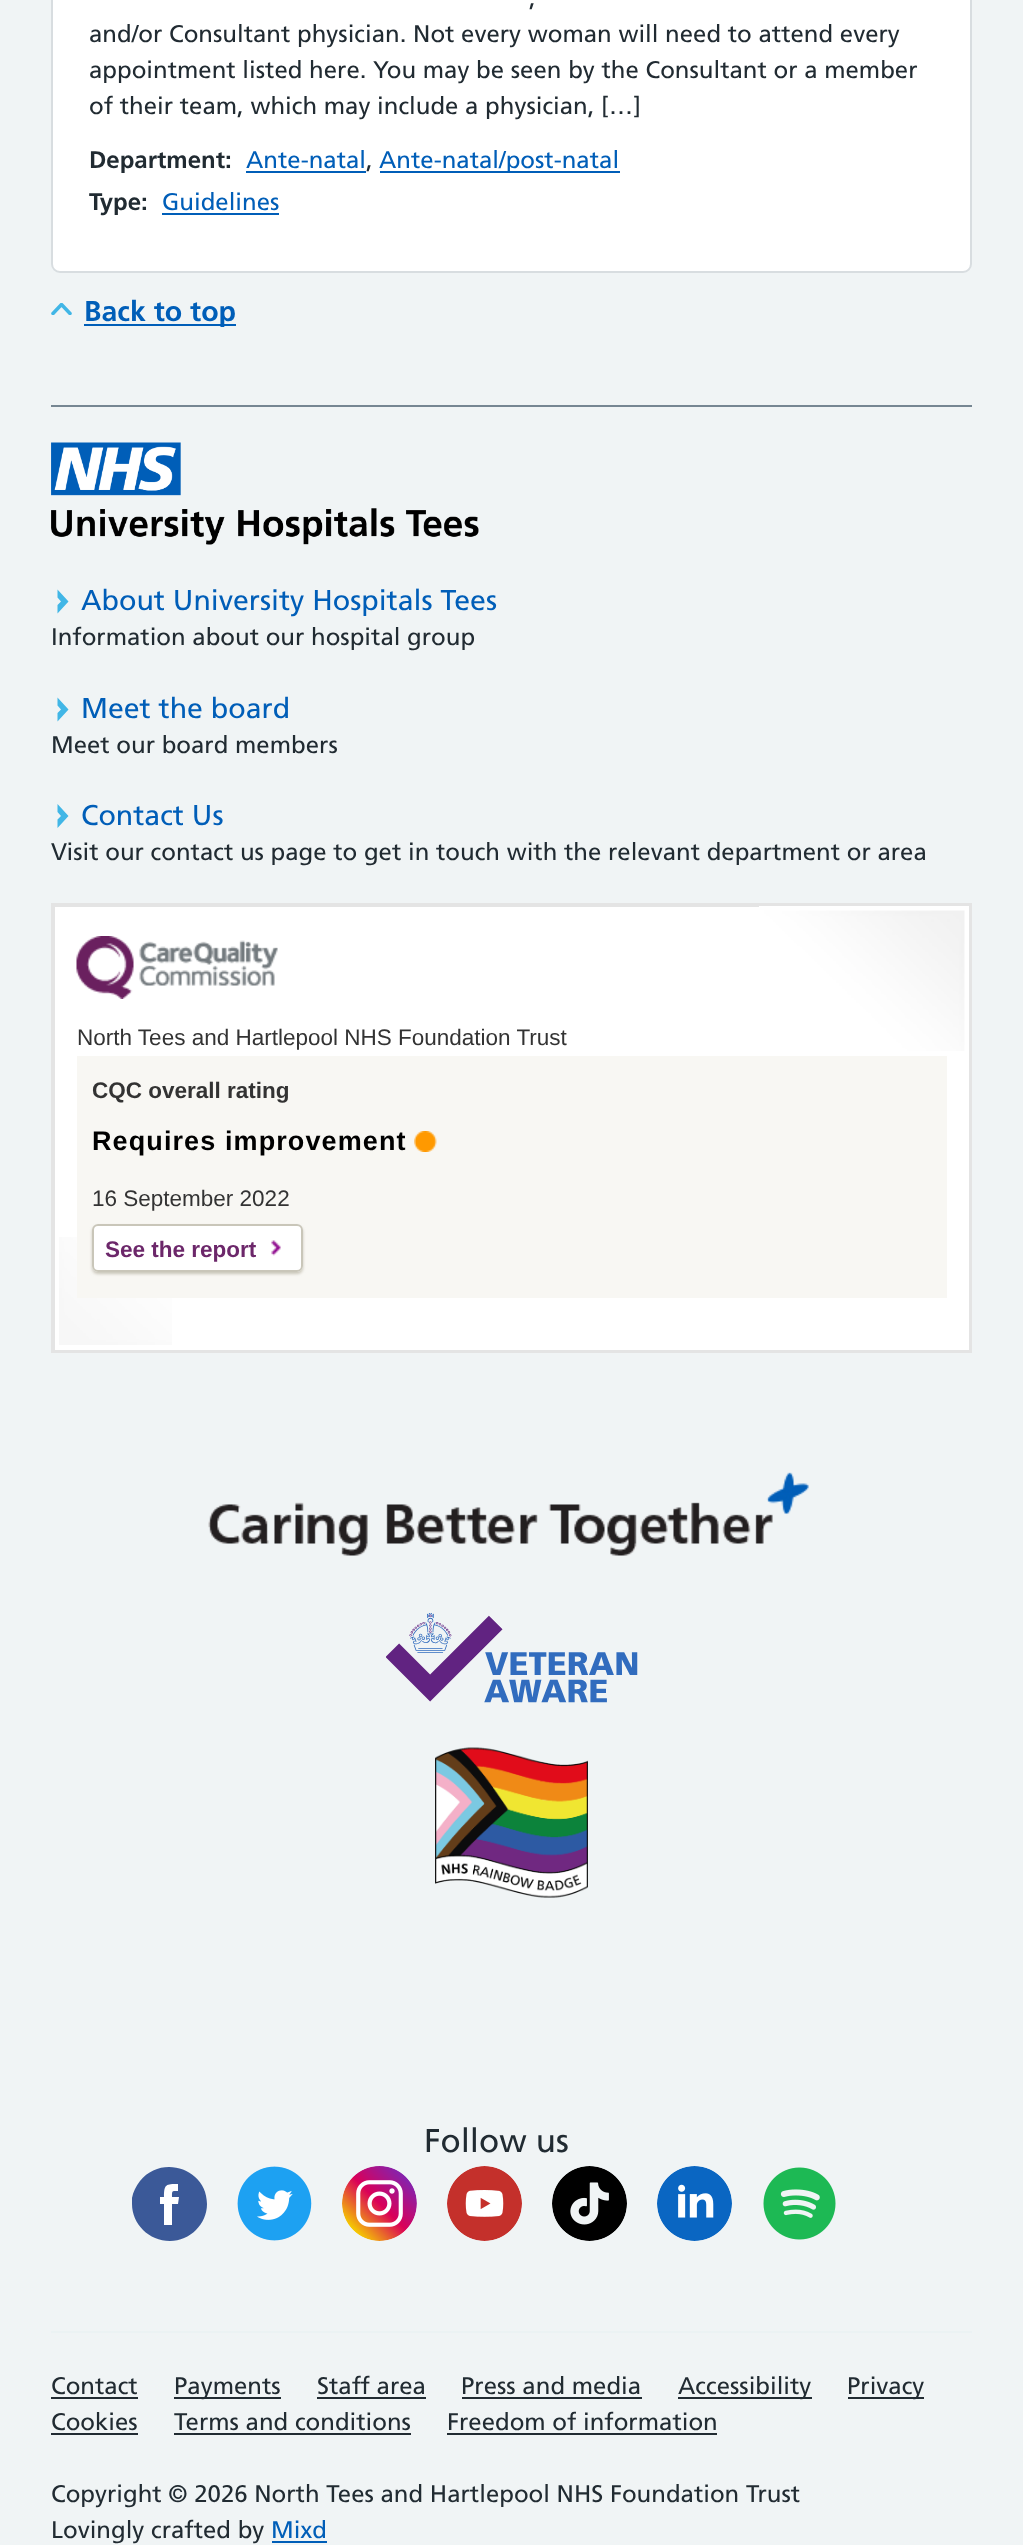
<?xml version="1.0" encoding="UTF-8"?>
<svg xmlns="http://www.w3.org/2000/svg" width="1023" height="2545">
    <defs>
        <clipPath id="clip1"><rect x="51" y="303" width="21" height="12"/></clipPath>
        <filter id="blur1" x="-50%" y="-200%" width="200%" height="500%"><feGaussianBlur stdDeviation="1.5"/></filter>
    </defs>
    <rect width="100%" height="100%" fill="#F0F4F5"/>
    <rect x="52" y="-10" width="919" height="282" rx="8" fill="#FFFFFF" stroke="#D8DDE0" stroke-width="2"/>
    <text x="529" y="6" font-family="Frutiger" font-size="24" fill="#212B32">,</text>
    <text font-family="Frutiger" font-size="24" fill="#212B32">
        <tspan x="89" y="42">and/or Consultant physician. Not every woman will need to attend every</tspan>
        <tspan x="89" y="78">appointment listed here. You may be seen by the Consultant or a member</tspan>
        <tspan x="89" y="114">of their team, which may include a physician, […]</tspan>
    </text>
    <text x="89" y="168" font-family="Frutiger" font-size="24" font-weight="700" fill="#212B32">Department:</text>
    <text x="246" y="168" font-family="Frutiger" font-size="24" fill="#005EB8">Ante-natal</text>
    <text x="366" y="168" font-family="Frutiger" font-size="24" fill="#212B32">,</text>
    <rect x="246" y="171" width="120" height="2" fill="#005EB8"/>
    <rect x="380" y="171" width="240" height="2" fill="#005EB8"/>
    <text x="379" y="168" font-family="Frutiger" font-size="24" fill="#005EB8">Ante-natal/post-natal</text>
    <text x="89" y="210" font-family="Frutiger" font-size="24" font-weight="700" fill="#212B32">Type:</text>
    <text x="162" y="210" font-family="Frutiger" font-size="24" fill="#005EB8">Guidelines</text>
    <rect x="162" y="213" width="117" height="2" fill="#005EB8"/>
    <g clip-path="url(#clip1)">
        <path d="M 70 313.5 L 61.5 304.5 L 53 313.5" fill="none" stroke="#41B6E6" stroke-width="3.5" stroke-linecap="round" stroke-linejoin="round"/>
    </g>
    <rect x="84" y="324" width="152" height="2" fill="#005EB8"/>
    <text x="84" y="321" font-family="Frutiger" font-size="28.5" font-weight="700" fill="#005EB8">Back to top</text>
    <rect x="51" y="405" width="921" height="2" fill="#768692"/>
    <image x="51" y="442" width="428" height="103" href="img_01.png"/>
    <path d="M 57.5 589.5 L 68.5 601.5 L 57.5 613.5 V 605 L 61 601.5 L 57.5 597.5 Z" fill="#41B6E6" fill-rule="evenodd"/>
    <text x="81" y="610" font-family="Frutiger" font-size="28.5" fill="#005EB8">About University Hospitals Tees</text>
    <text x="51" y="645" font-family="Frutiger" font-size="24" fill="#212B32">Information about our hospital group</text>
    <path d="M 57.5 697.5 L 68.5 709.5 L 57.5 721.5 V 713 L 61 709.5 L 57.5 705.5 Z" fill="#41B6E6" fill-rule="evenodd"/>
    <text x="81" y="718" font-family="Frutiger" font-size="28.5" fill="#005EB8">Meet the board</text>
    <text x="51" y="753" font-family="Frutiger" font-size="24" fill="#212B32">Meet our board members</text>
    <path d="M 57.5 804 L 68.5 816 L 57.5 828 V 819.5 L 61 816 L 57.5 812 Z" fill="#41B6E6" fill-rule="evenodd"/>
    <text x="81" y="825" font-family="Frutiger" font-size="28.5" fill="#005EB8">Contact Us</text>
    <text x="51" y="860" font-family="Frutiger" font-size="24" fill="#212B32">Visit our contact us page to get in touch with the relevant department or area</text>
    <rect x="52" y="904" width="919" height="448" fill="none" stroke="#E4E4E4" stroke-width="2"/>
    <rect x="55" y="907" width="914" height="443" fill="#FFFFFF"/>
    <image x="59" y="1237" width="113" height="108" href="img_02.png"/>
    <rect x="54" y="906" width="916" height="445" fill="none" stroke="#E4E4E4" stroke-width="2"/>
    <image x="759" y="906" width="210" height="145" href="img_03.png"/>
    <image x="76" y="936" width="202" height="63" href="img_04.png"/>
    <text x="77" y="1045" font-family="Liberation Sans" font-size="22.5" fill="#333333">North Tees and Hartlepool NHS Foundation Trust</text>
    <rect x="77" y="1056" width="870" height="242" fill="#F8F7F3"/>
    <text x="92" y="1098" font-family="Liberation Sans" font-size="22.5" font-weight="700" fill="#333333">CQC overall rating</text>
    <text x="92" y="1150" font-family="Liberation Sans" font-size="27" font-weight="700" letter-spacing="1.1" fill="#000000">Requires improvement</text>
    <image x="414" y="1131" width="23" height="21" href="img_05.png"/>
    <text x="92" y="1206" font-family="Liberation Sans" font-size="22.5" fill="#333333">16 September 2022</text>
    <rect x="92" y="1226" width="211" height="48" rx="6" fill="#C9C6B9" filter="url(#blur1)"/>
    <rect x="92" y="1224" width="211" height="48" rx="6" fill="#FFFFFF"/>
    <image x="271" y="1240" width="10" height="16" href="img_06.png"/>
    <rect x="93" y="1225" width="209" height="46" rx="5" fill="none" stroke="#C9C6B9" stroke-width="2"/>
    <text x="105" y="1257" font-family="Liberation Sans" font-size="22.5" font-weight="700" fill="#6C276A">See the report</text>
    <image x="208" y="1472" width="601" height="84" href="img_07.png"/>
    <image x="386" y="1613" width="252" height="90" href="img_08.png"/>
    <image x="435" y="1747" width="153" height="151" href="img_09.png"/>
    <text x="424" y="2152" font-family="Frutiger" font-size="33" fill="#212B32">Follow us</text>
    <path d="M 132 2198 C 133 2192 136 2186 140 2181 C 161 2154 207 2168 207 2204 C 207 2224 190 2241 170 2241 C 149 2241 132 2224 132 2204 Z" fill="#3B5998"/>
    <path d="M 172 2225 V 2204 H 178 L 179 2197 H 172 C 172 2190 172 2191 178 2191 V 2184 C 166 2184 164 2184 164 2197 H 160 V 2204 H 164 V 2225 Z" fill="#FFFFFF" fill-rule="evenodd"/>
    <image x="237" y="2166" width="75" height="75" href="img_10.png"/>
    <image x="342" y="2166" width="75" height="75" href="img_11.png"/>
    <image x="447" y="2166" width="75" height="75" href="img_12.png"/>
    <image x="552" y="2166" width="75" height="75" href="img_13.png"/>
    <image x="657" y="2166" width="75" height="75" href="img_14.png"/>
    <image x="763" y="2167" width="73" height="73" href="img_15.png"/>
    <rect x="51" y="2331" width="921" height="2" fill="#EBF2F3"/>
    <text x="51" y="2394" font-family="Frutiger" font-size="24" fill="#212B32">Contact</text>
    <rect x="51" y="2397" width="87" height="2" fill="#212B32"/>
    <rect x="174" y="2397" width="107" height="2" fill="#212B32"/>
    <text x="174" y="2394" font-family="Frutiger" font-size="24" fill="#212B32">Payments</text>
    <text x="317" y="2394" font-family="Frutiger" font-size="24" fill="#212B32">Staff area</text>
    <rect x="317" y="2397" width="109" height="2" fill="#212B32"/>
    <text x="461" y="2394" font-family="Frutiger" font-size="24" fill="#212B32">Press and media</text>
    <rect x="462" y="2397" width="180" height="2" fill="#212B32"/>
    <rect x="678" y="2397" width="134" height="2" fill="#212B32"/>
    <text x="678" y="2394" font-family="Frutiger" font-size="24" fill="#212B32">Accessibility</text>
    <rect x="848" y="2397" width="76" height="2" fill="#212B32"/>
    <text x="847" y="2394" font-family="Frutiger" font-size="24" fill="#212B32">Privacy</text>
    <text x="51" y="2430" font-family="Frutiger" font-size="24" fill="#212B32">Cookies</text>
    <rect x="51" y="2433" width="87" height="2" fill="#212B32"/>
    <text x="174" y="2430" font-family="Frutiger" font-size="24" fill="#212B32">Terms and conditions</text>
    <rect x="174" y="2433" width="237" height="2" fill="#212B32"/>
    <text x="447" y="2430" font-family="Frutiger" font-size="24" fill="#212B32">Freedom of information</text>
    <rect x="447" y="2433" width="270" height="2" fill="#212B32"/>
    <text font-family="Frutiger" font-size="24" fill="#212B32">
        <tspan x="51" y="2502">Copyright © 2026 North Tees and Hartlepool NHS Foundation Trust</tspan>
        <tspan x="51" y="2538">Lovingly crafted by</tspan>
    </text>
    <text x="271" y="2538" font-family="Frutiger" font-size="24" fill="#005EB8">Mixd</text>
    <rect x="272" y="2541" width="55" height="2" fill="#005EB8"/>
</svg>
